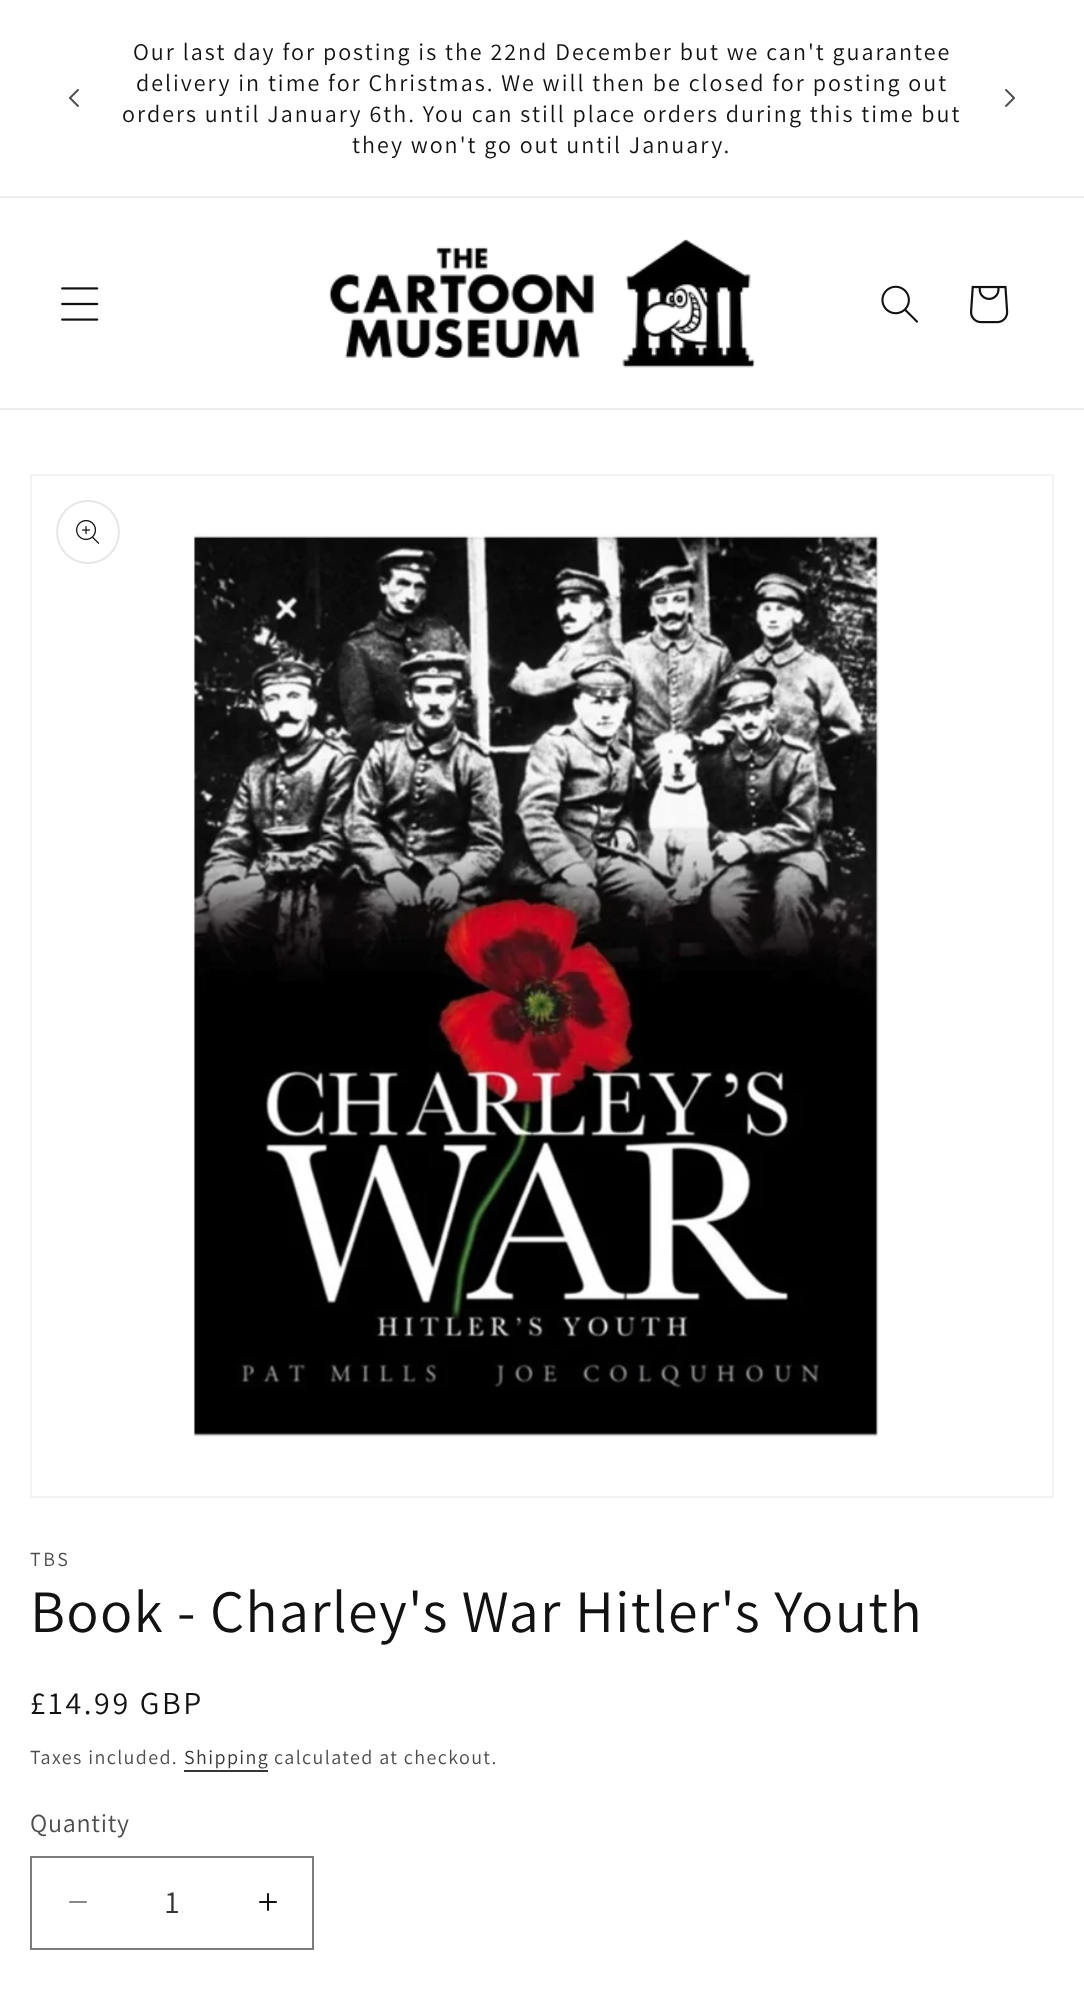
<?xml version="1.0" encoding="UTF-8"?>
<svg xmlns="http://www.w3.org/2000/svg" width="1084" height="1989">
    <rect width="100%" height="100%" fill="#FFFFFF"/>
    <rect x="0" y="196" width="1084" height="2" fill="#ECECEC"/>
    <image x="69" y="89" width="10" height="18" href="img_01.png"/>
    <text x="133" y="60" font-family="Assistant" font-size="24" letter-spacing="2" fill="#121212">Our last day for posting is the 22nd December but we can't guarantee</text>
    <text x="136" y="91" font-family="Assistant" font-size="24" letter-spacing="2" fill="#121212">delivery in time for Christmas. We will then be closed for posting out</text>
    <text x="122" y="122" font-family="Assistant" font-size="24" letter-spacing="2" fill="#121212">orders until January 6th. You can still place orders during this time but</text>
    <text x="352" y="153" font-family="Assistant" font-size="24" letter-spacing="2" fill="#121212">they won't go out until January.</text>
    <image x="1005" y="89" width="10" height="18" href="img_02.png"/>
    <rect x="0" y="408" width="1084" height="2" fill="#ECECEC"/>
    <image x="61" y="287" width="38" height="34" href="img_03.png"/>
    <image x="329" y="239" width="426" height="129" href="img_04.png"/>
    <image x="881" y="285" width="37" height="38" href="img_05.png"/>
    <image x="970" y="285" width="39" height="39" href="img_06.png"/>
    <rect x="31" y="475" width="1022" height="1022" fill="none" stroke="#F3F3F3" stroke-width="2"/>
    <circle cx="88" cy="532" r="31" fill="none" stroke="#E7E7E7" stroke-width="2"/>
    <image x="76" y="520" width="24" height="24" href="img_07.png"/>
    <image x="191" y="534" width="689" height="903" href="img_08.png"/>
    <text x="30" y="1566" font-family="Assistant" font-size="20" letter-spacing="2.6" fill="#4D4D4D">TBS</text>
    <text x="30" y="1632" font-family="Assistant" font-size="60" letter-spacing="1.2" fill="#121212">Book - Charley's War Hitler's Youth</text>
    <text x="30" y="1714" font-family="Assistant" font-size="32" letter-spacing="2.6" fill="#121212">£14.99 GBP</text>
    <text x="30" y="1764" font-family="Assistant" font-size="20" letter-spacing="1.4" fill="#4D4D4D">Taxes included.</text>
    <text x="184" y="1764" font-family="Assistant" font-size="20" letter-spacing="1.4" fill="#363636">Shipping</text>
    <rect x="184" y="1770" width="84" height="2" fill="#363636"/>
    <text x="274" y="1764" font-family="Assistant" font-size="20" letter-spacing="1.4" fill="#4D4D4D">calculated at checkout.</text>
    <text x="30" y="1832" font-family="Assistant" font-size="26" letter-spacing="0.75" fill="#4D4D4D">Quantity</text>
    <image x="69" y="1901" width="18" height="2" href="img_09.png"/>
    <image x="259" y="1893" width="18" height="18" href="img_10.png"/>
    <rect x="31" y="1857" width="282" height="92" fill="none" stroke="#7D7D7D" stroke-width="2"/>
    <text x="165" y="1913" font-family="Assistant" font-size="32" fill="#363636">1</text>
</svg>
